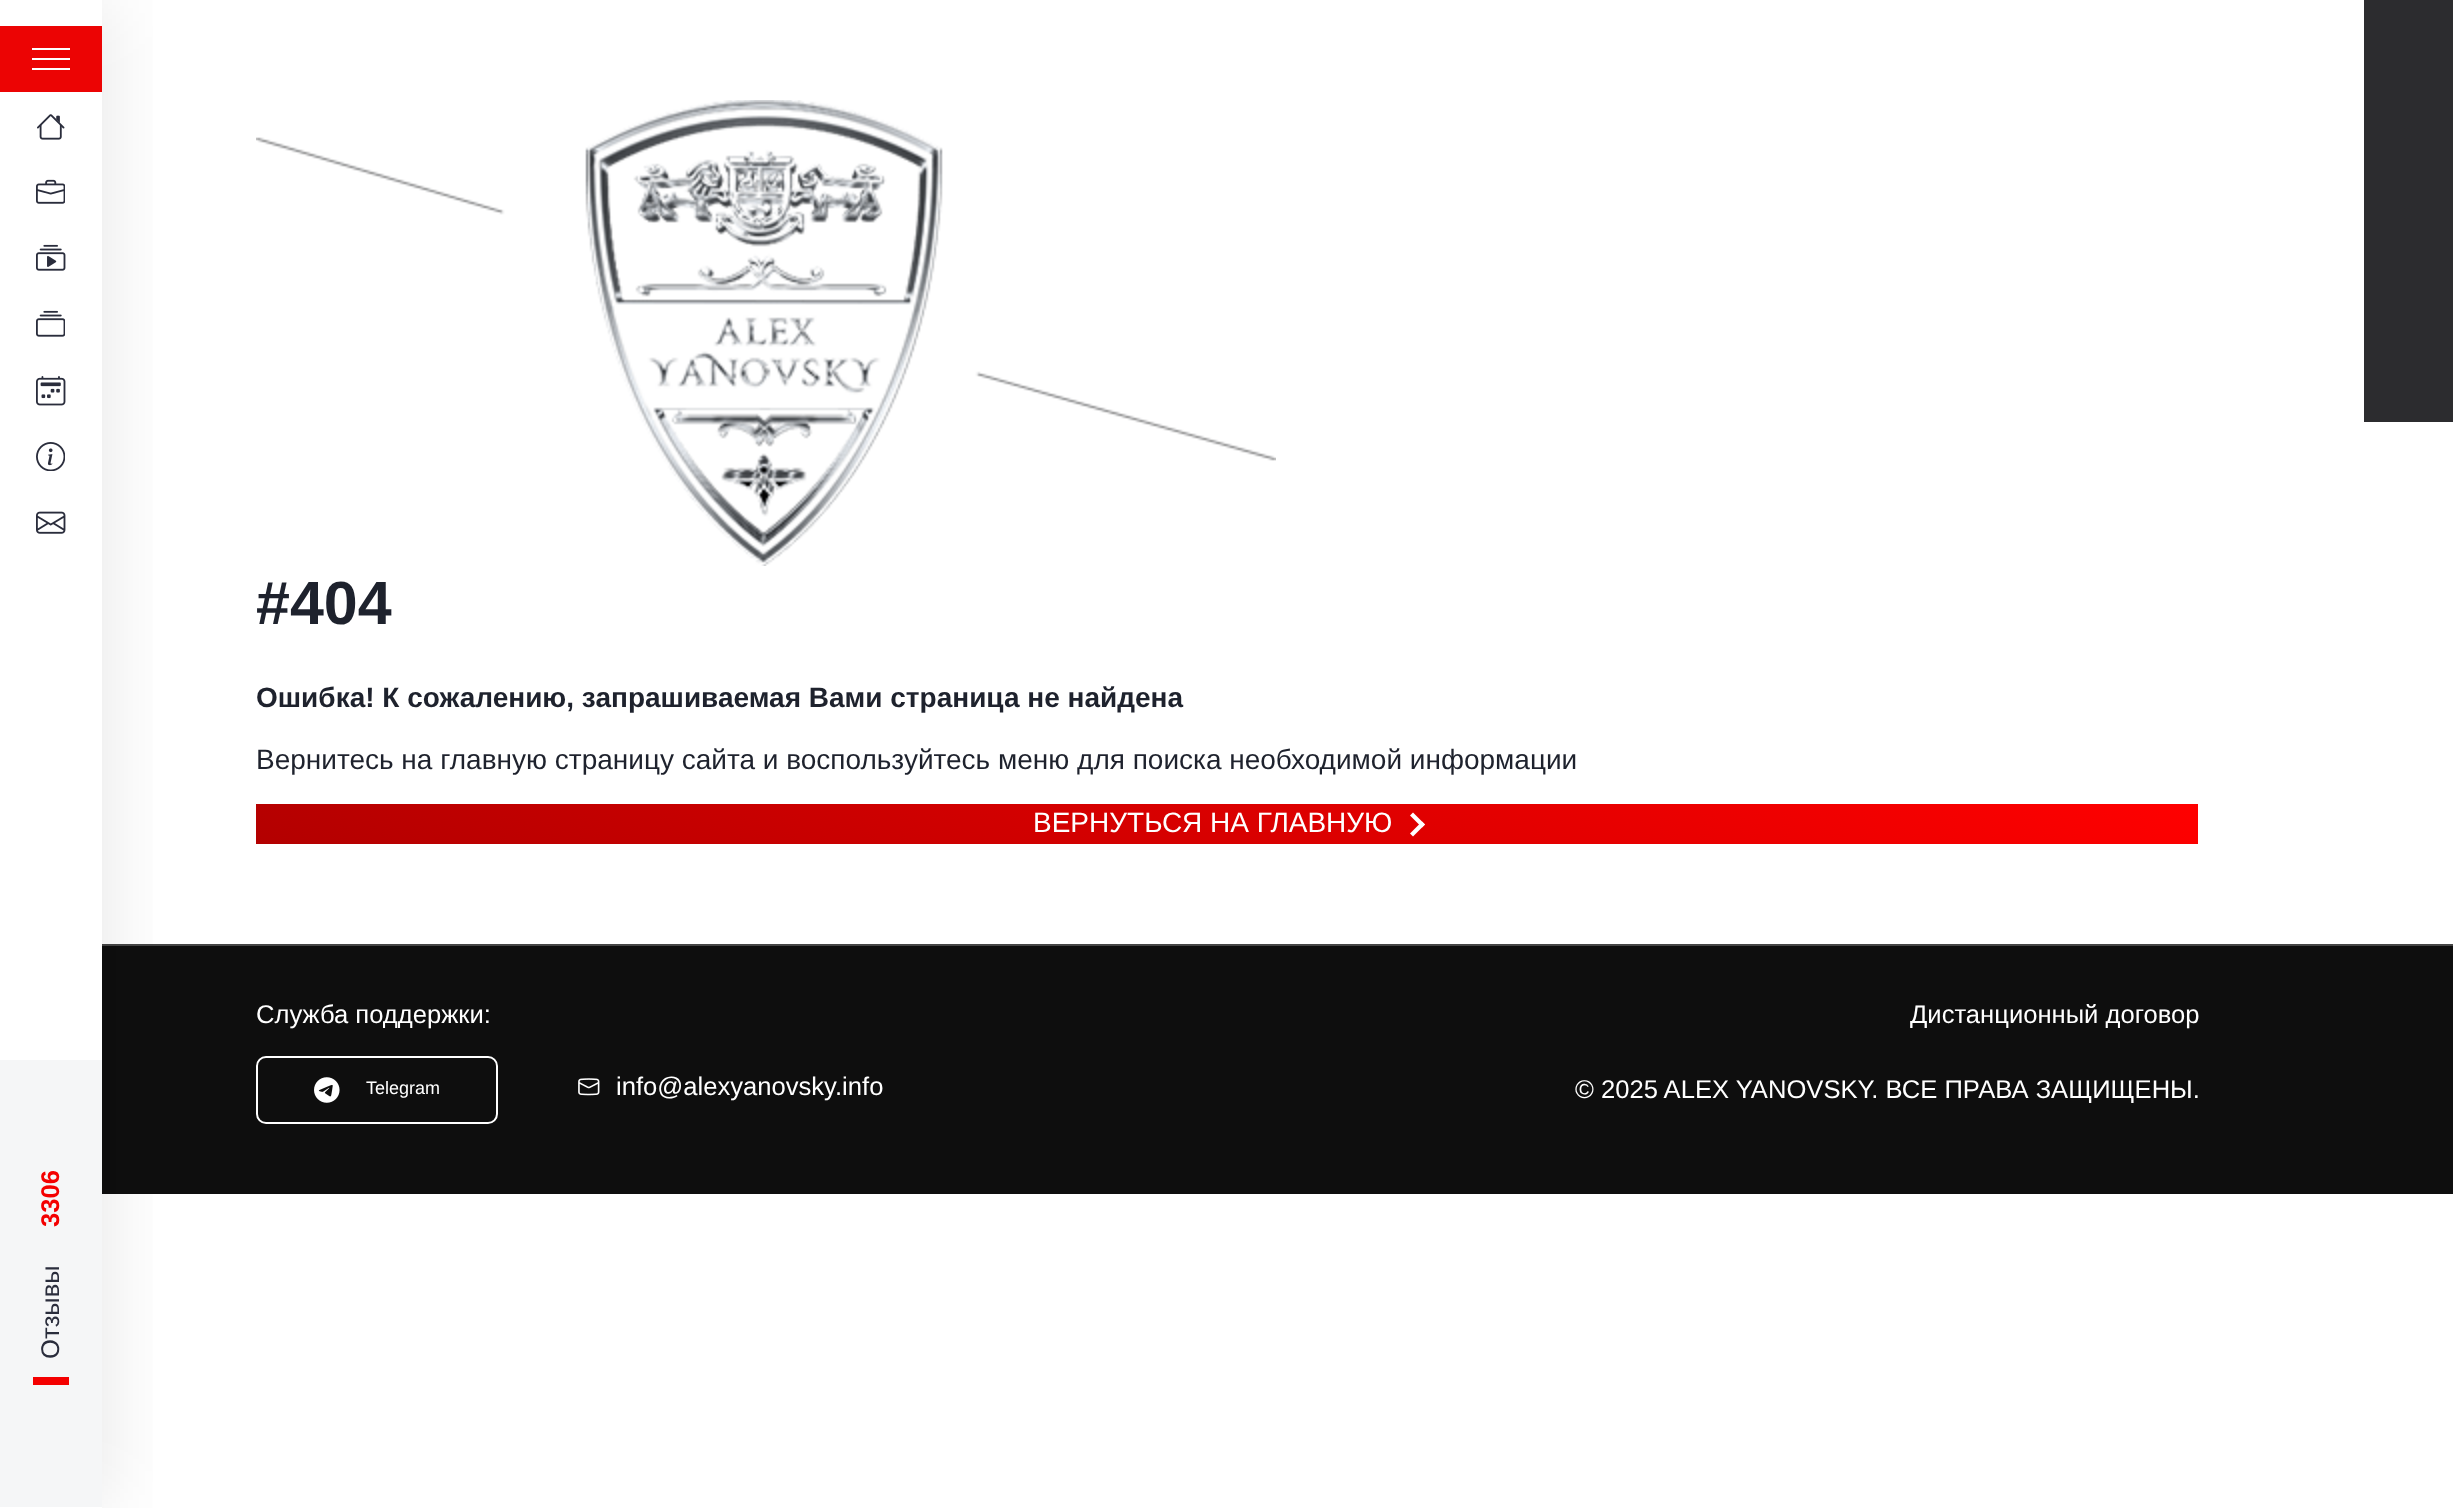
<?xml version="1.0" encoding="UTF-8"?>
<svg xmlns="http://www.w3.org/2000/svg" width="2453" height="1508">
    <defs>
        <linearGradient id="g1" gradientUnits="userSpaceOnUse" x1="1084" y1="1178" x2="1370" y2="470"><stop offset="0" stop-color="#B30000"/><stop offset="1" stop-color="#FF0000"/></linearGradient>
        <filter id="blur1" x="-50%" y="-200%" width="200%" height="500%"><feGaussianBlur stdDeviation="40"/></filter>
    </defs>
    <rect width="100%" height="100%" fill="#FFFFFF"/>
    <rect x="2364" y="0" width="89" height="422" fill="#2C2C2F"/>
    <image x="256" y="100" width="1020" height="466" href="img_01.png"/>
    <text x="256" y="624" font-family="Liberation Sans" font-size="61" font-weight="700" fill="#1E222D">#404</text>
    <text x="256" y="707" font-family="Liberation Sans" font-size="28" font-weight="700" fill="#1E222D">Ошибка! К сожалению, запрашиваемая Вами страница не найдена</text>
    <text x="256" y="769" font-family="Liberation Sans" font-size="28" fill="#1E222D">Вернитесь на главную страницу сайта и воспользуйтесь меню для поиска необходимой информации</text>
    <rect x="256" y="804" width="1942" height="40" fill="url(#g1)"/>
    <text x="1033" y="832" font-family="Liberation Sans" font-size="28" fill="#FFFFFF">ВЕРНУТЬСЯ НА ГЛАВНУЮ</text>
    <path d="M 1413 812.5 L 1425 824.5 L 1422 827.5 L 1410 815.5 Z" fill="#FFFFFF"/>
    <path d="M 1422 821.5 L 1425 824.5 L 1413 836.5 L 1410 833.5 Z" fill="#FFFFFF"/>
    <rect x="102" y="946" width="2351" height="248" fill="#0E0E0E"/>
    <rect x="102" y="944" width="2351" height="2" fill="#454545"/>
    <text x="256" y="1023" font-family="Liberation Sans" font-size="25.6" fill="#FFFFFF">Служба поддержки:</text>
    <text x="1910" y="1023" font-family="Liberation Sans" font-size="25.6" fill="#FFFFFF">Дистанционный договор</text>
    <rect x="257" y="1057" width="240" height="66" rx="9" fill="none" stroke="#FFFFFF" stroke-width="2"/>
    <image x="314" y="1077" width="26" height="26" href="img_02.png"/>
    <text x="366" y="1094" font-family="Liberation Sans" font-size="18" fill="#FFFFFF">Telegram</text>
    <image x="578" y="1078" width="22" height="18" href="img_03.png"/>
    <text x="616" y="1095" font-family="Liberation Sans" font-size="25.6" fill="#FFFFFF">info@alexyanovsky.info</text>
    <text x="1575" y="1098" font-family="Liberation Sans" font-size="25.6" fill="#FFFFFF">© 2025 ALEX YANOVSKY. ВСЕ ПРАВА ЗАЩИЩЕНЫ.</text>
    <rect x="0" y="0" width="102" height="1508" fill="#000000" fill-opacity="0.1" filter="url(#blur1)"/>
    <rect x="0" y="0" width="102" height="1508" fill="#FFFFFF"/>
    <rect x="0" y="26" width="102" height="66" fill="#EC0404"/>
    <rect x="32" y="48" width="38" height="2" fill="#FFFFFF"/>
    <rect x="32" y="68" width="38" height="2" fill="#FFFFFF"/>
    <rect x="32" y="58" width="38" height="2" fill="#FFFFFF"/>
    <image x="37" y="114" width="28" height="26" href="img_04.png"/>
    <image x="36" y="179" width="29" height="25" href="img_05.png"/>
    <image x="36" y="244" width="30" height="27" href="img_06.png"/>
    <image x="36" y="310" width="29" height="27" href="img_07.png"/>
    <image x="36" y="376" width="30" height="30" href="img_08.png"/>
    <image x="36" y="442" width="29" height="29" href="img_09.png"/>
    <image x="36" y="511" width="30" height="23" href="img_10.png"/>
    <rect x="0" y="1060" width="102" height="447" fill="#F5F6F7"/>
    <text x="59" y="1227" transform="rotate(-90 59 1227)" font-family="Liberation Sans" font-size="25.6" font-weight="700" fill="#F40000">3306</text>
    <text x="59" y="1359" transform="rotate(-90 59 1359)" font-family="Liberation Sans" font-size="25.6" fill="#2A2D3C">Отзывы</text>
    <rect x="33" y="1377" width="36" height="8" fill="#F40000"/>
</svg>
